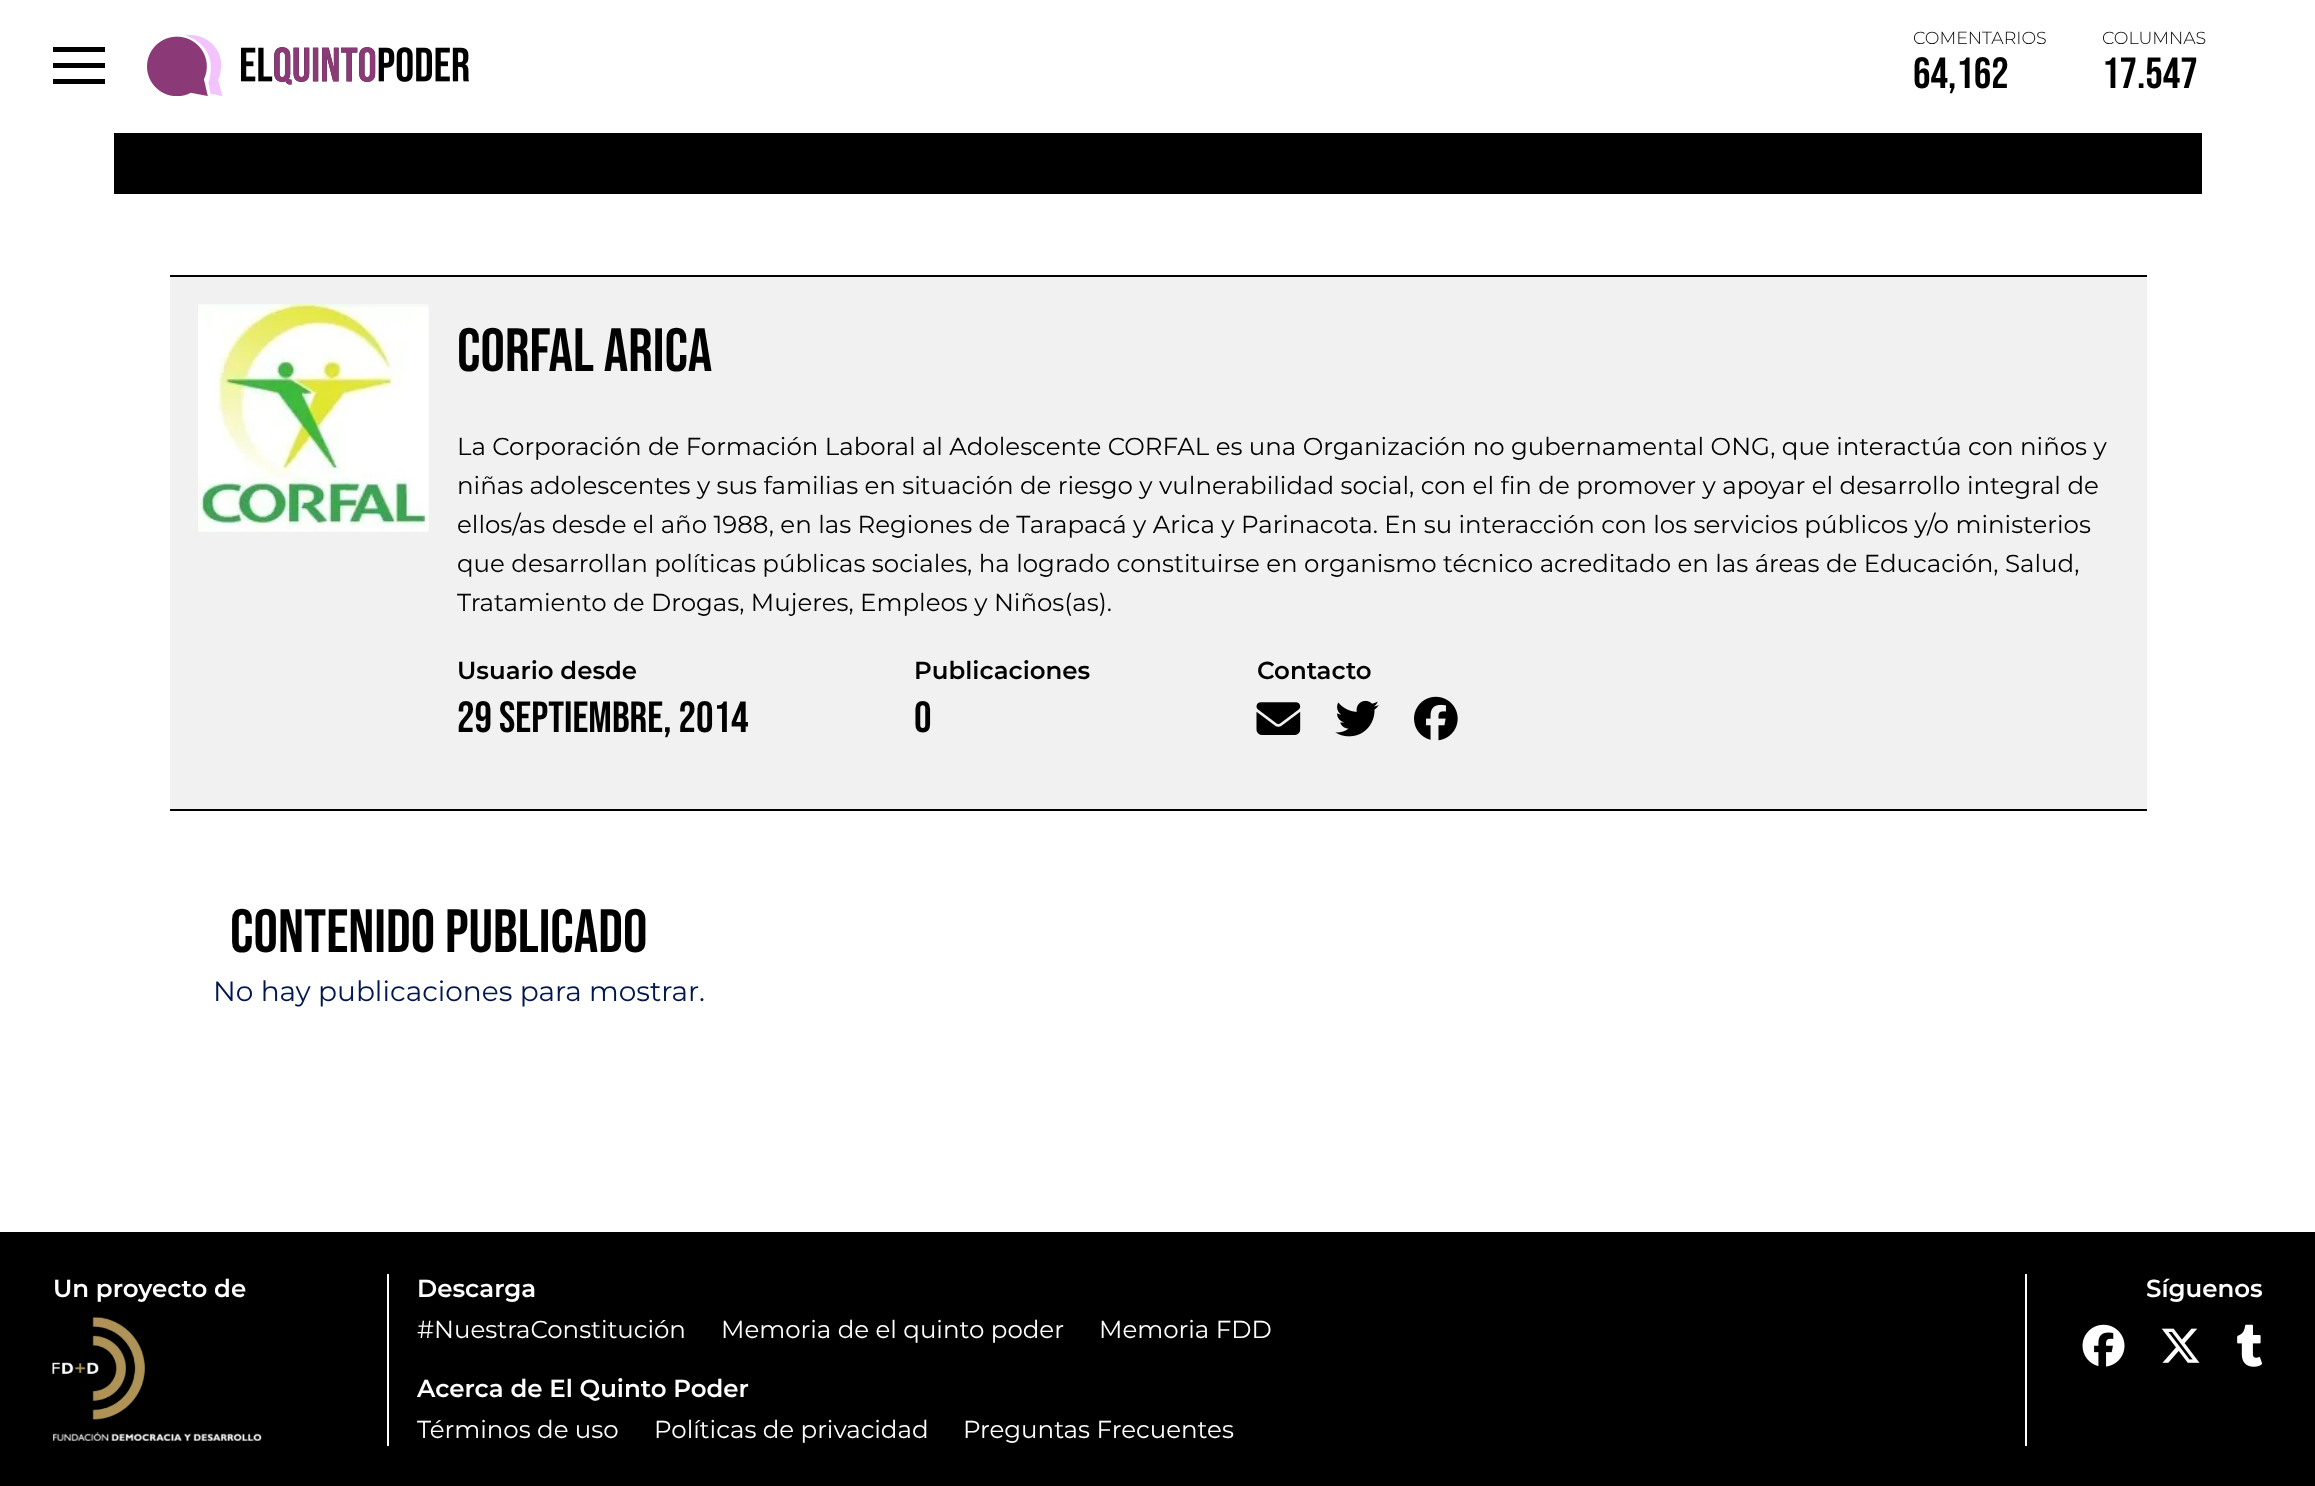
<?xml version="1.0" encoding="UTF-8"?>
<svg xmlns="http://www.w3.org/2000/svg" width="2315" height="1486">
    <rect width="100%" height="100%" fill="#FFFFFF"/>
    <rect x="53" y="47" width="52" height="5" fill="#000000"/>
    <rect x="53" y="63" width="52" height="5" fill="#000000"/>
    <rect x="53" y="79" width="52" height="5" fill="#000000"/>
    <image x="147" y="35" width="322" height="61" href="img_01.png"/>
    <text x="1913" y="44" font-family="Montserrat" font-size="17.5" font-weight="300" fill="#000000">COMENTARIOS</text>
    <text x="1913" y="88" font-family="Bebas Neue" font-size="43.75" fill="#000000">64,162</text>
    <text x="2102" y="44" font-family="Montserrat" font-size="17.5" font-weight="300" fill="#000000">COLUMNAS</text>
    <text x="2102" y="88" font-family="Bebas Neue" font-size="43.75" fill="#000000">17.547</text>
    <rect x="114" y="133" width="2088" height="61" fill="#000000"/>
    <rect x="170" y="277" width="1977" height="532" fill="#F1F1F1"/>
    <rect x="170" y="275" width="1977" height="2" fill="#000000"/>
    <rect x="170" y="809" width="1977" height="2" fill="#000000"/>
    <image x="198" y="304" width="231" height="228" href="img_02.png"/>
    <text x="457" y="371" font-family="Bebas Neue" font-size="61" fill="#000000">CORFAL Arica</text>
    <text font-family="Montserrat" font-size="24.5" fill="#000000">
        <tspan x="457" y="455">La Corporación de Formación Laboral al Adolescente CORFAL es una Organización no gubernamental ONG, que interactúa con niños y</tspan>
        <tspan x="457" y="494">niñas adolescentes y sus familias en situación de riesgo y vulnerabilidad social, con el fin de promover y apoyar el desarrollo integral de</tspan>
        <tspan x="457" y="533">ellos/as desde el año 1988, en las Regiones de Tarapacá y Arica y Parinacota. En su interacción con los servicios públicos y/o ministerios</tspan>
        <tspan x="457" y="572">que desarrollan políticas públicas sociales, ha logrado constituirse en organismo técnico acreditado en las áreas de Educación, Salud,</tspan>
        <tspan x="457" y="611">Tratamiento de Drogas, Mujeres, Empleos y Niños(as).</tspan>
    </text>
    <text x="457" y="679" font-family="Montserrat" font-size="24.5" font-weight="600" fill="#000000">Usuario desde</text>
    <text x="457" y="732" font-family="Bebas Neue" font-size="43.75" fill="#000000">29 septiembre, 2014</text>
    <text x="914" y="679" font-family="Montserrat" font-size="24.5" font-weight="600" fill="#000000">Publicaciones</text>
    <text x="914" y="732" font-family="Bebas Neue" font-size="43.75" fill="#000000">0</text>
    <text x="1257" y="679" font-family="Montserrat" font-size="24.5" font-weight="600" fill="#000000">Contacto</text>
    <image x="1256" y="702" width="45" height="33" href="img_03.png"/>
    <image x="1335" y="700" width="44" height="37" href="img_04.png"/>
    <image x="1414" y="696" width="44" height="45" href="img_05.png"/>
    <text x="230" y="952" font-family="Bebas Neue" font-size="61" fill="#000000">CONTENIDO PUBLICADO</text>
    <text x="213" y="1001" font-family="Montserrat" font-size="28" fill="#00174F">No hay publicaciones para mostrar.</text>
    <rect x="0" y="1232" width="2315" height="254" fill="#000000"/>
    <rect x="387" y="1274" width="2" height="172" fill="#FFFFFF"/>
    <text x="53" y="1297" font-family="Montserrat" font-size="24.5" font-weight="600" fill="#FFFFFF">Un proyecto de</text>
    <image x="52" y="1317" width="210" height="124" href="img_06.png"/>
    <rect x="2025" y="1274" width="2" height="172" fill="#FFFFFF"/>
    <text x="417" y="1297" font-family="Montserrat" font-size="24.5" font-weight="600" fill="#FFFFFF">Descarga</text>
    <text x="417" y="1338" font-family="Montserrat" font-size="24.5" fill="#FFFFFF">#NuestraConstitución</text>
    <text x="721" y="1338" font-family="Montserrat" font-size="24.5" fill="#FFFFFF">Memoria de el quinto poder</text>
    <text x="1099" y="1338" font-family="Montserrat" font-size="24.5" fill="#FFFFFF">Memoria FDD</text>
    <text x="417" y="1397" font-family="Montserrat" font-size="24.5" font-weight="600" fill="#FFFFFF">Acerca de El Quinto Poder</text>
    <text x="417" y="1438" font-family="Montserrat" font-size="24.5" fill="#FFFFFF">Términos de uso</text>
    <text x="654" y="1438" font-family="Montserrat" font-size="24.5" fill="#FFFFFF">Políticas de privacidad</text>
    <text x="963" y="1438" font-family="Montserrat" font-size="24.5" fill="#FFFFFF">Preguntas Frecuentes</text>
    <text x="2146" y="1297" font-family="Montserrat" font-size="24.5" font-weight="600" fill="#FFFFFF">Síguenos</text>
    <image x="2082" y="1324" width="43" height="43" href="img_07.png"/>
    <image x="2161" y="1328" width="39" height="35" href="img_08.png"/>
    <image x="2237" y="1324" width="26" height="43" href="img_09.png"/>
</svg>
